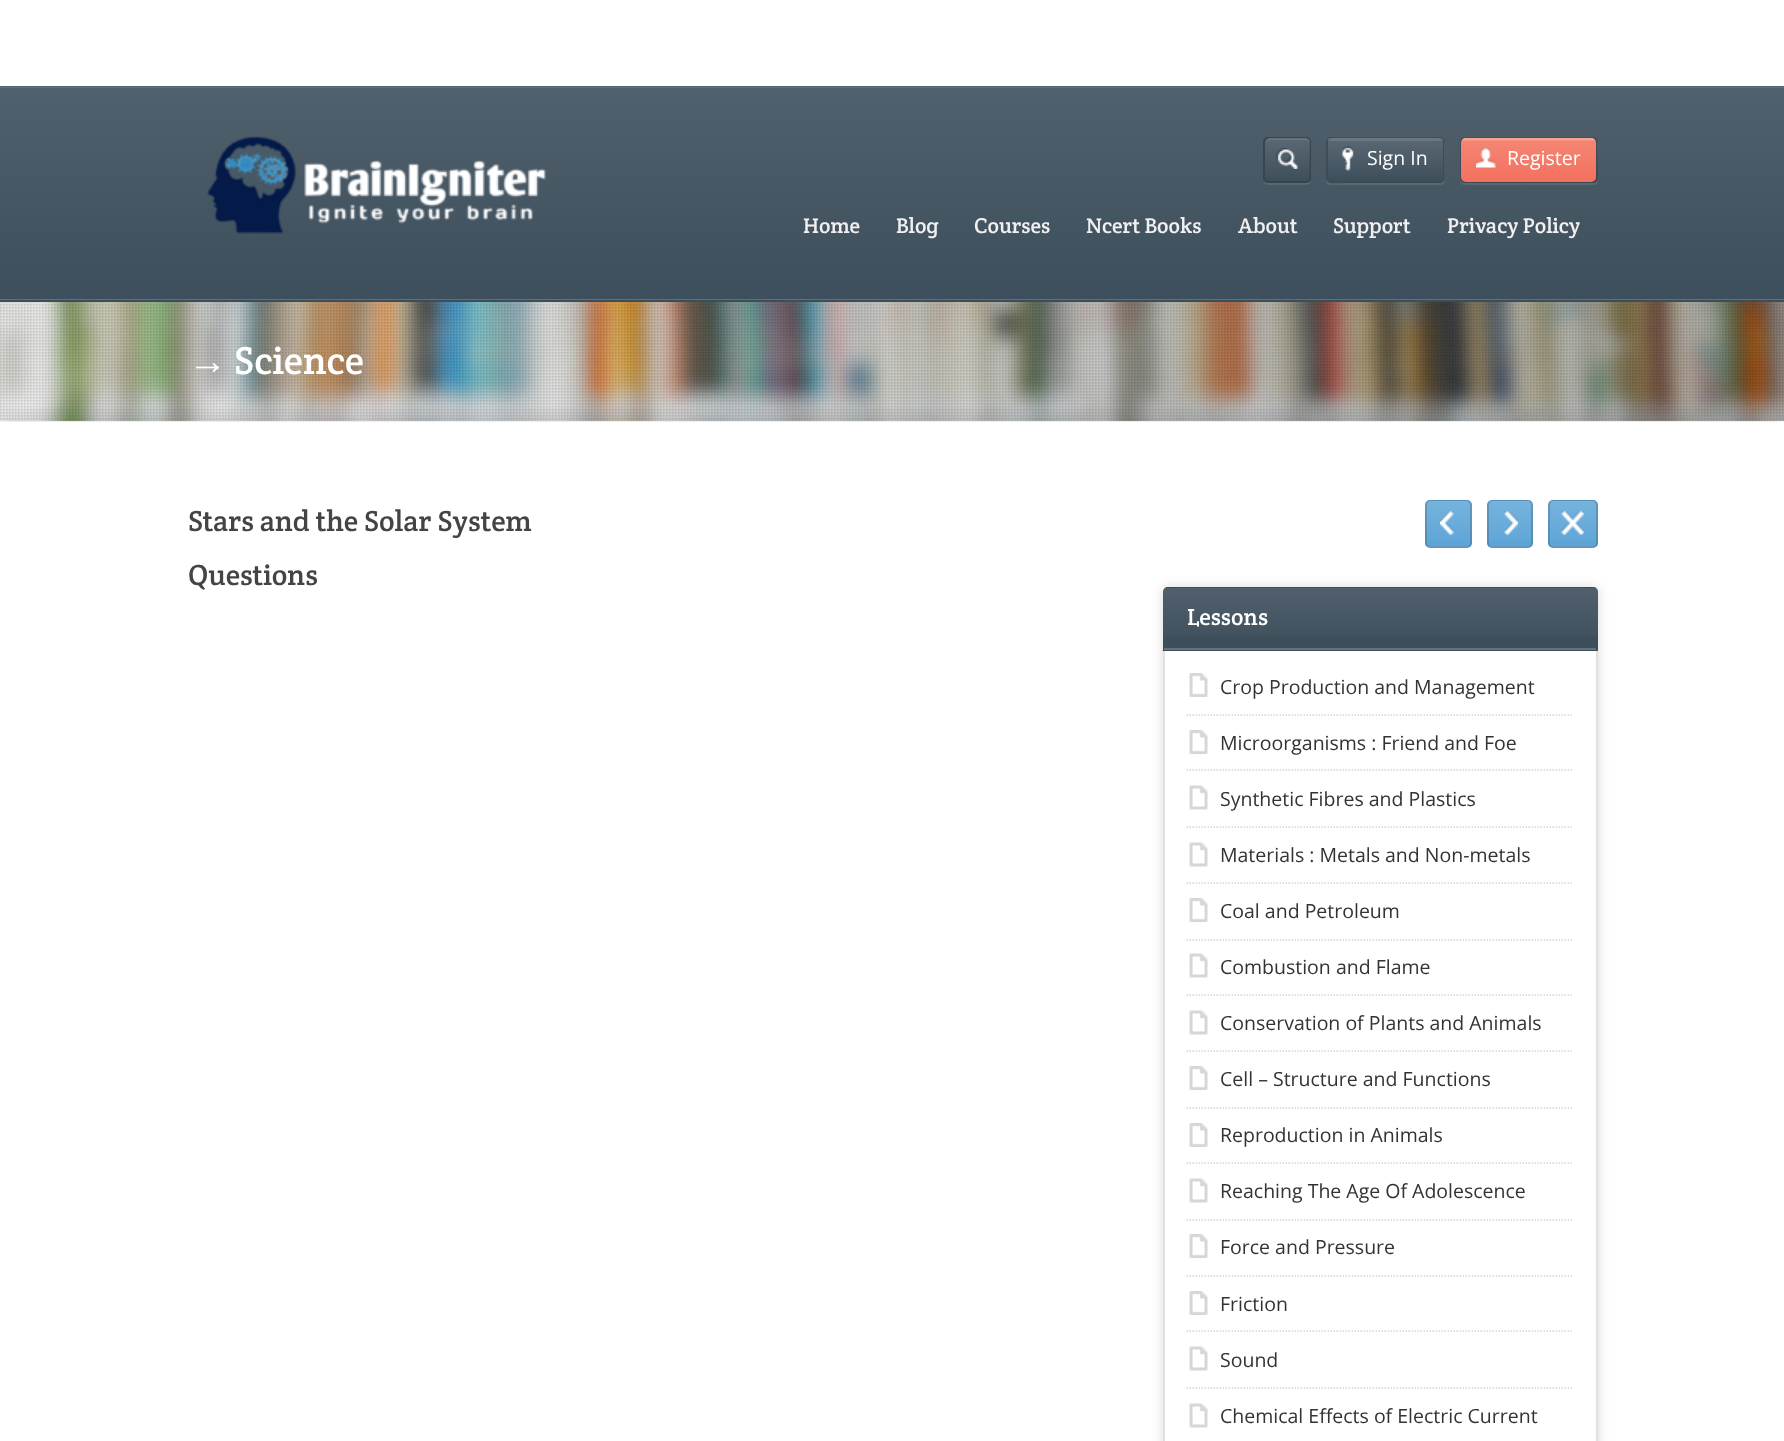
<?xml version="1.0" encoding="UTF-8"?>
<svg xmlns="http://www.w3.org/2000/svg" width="1784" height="1441">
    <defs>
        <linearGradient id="g1" gradientUnits="userSpaceOnUse" x1="893" y1="87" x2="893" y2="299"><stop offset="0" stop-color="#50606C"/><stop offset="1" stop-color="#3D4E5C"/></linearGradient>
        <linearGradient id="g2" gradientUnits="userSpaceOnUse" x1="893" y1="87" x2="893" y2="299"><stop offset="0" stop-color="#62707B"/><stop offset="1" stop-color="#50606C"/></linearGradient>
        <linearGradient id="g3" gradientUnits="userSpaceOnUse" x1="893" y1="298" x2="893" y2="510"><stop offset="0" stop-color="#50606B"/><stop offset="1" stop-color="#3D4E5B"/></linearGradient>
        <linearGradient id="g4" gradientUnits="userSpaceOnUse" x1="1287" y1="138" x2="1287" y2="182"><stop offset="0" stop-color="#FFFFFF" stop-opacity="0.15"/><stop offset="1" stop-color="#FFFFFF" stop-opacity="0"/></linearGradient>
        <linearGradient id="g5" gradientUnits="userSpaceOnUse" x1="1385" y1="138" x2="1385" y2="182"><stop offset="0" stop-color="#FFFFFF" stop-opacity="0.15"/><stop offset="1" stop-color="#FFFFFF" stop-opacity="0"/></linearGradient>
        <linearGradient id="g6" gradientUnits="userSpaceOnUse" x1="1529" y1="138" x2="1529" y2="182"><stop offset="0" stop-color="#FFFFFF" stop-opacity="0.15"/><stop offset="1" stop-color="#FFFFFF" stop-opacity="0"/></linearGradient>
        <clipPath id="clip1"><rect x="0" y="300" width="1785" height="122"/></clipPath>
        <filter id="blur1" x="-50%" y="-200%" width="200%" height="500%"><feGaussianBlur stdDeviation="11"/></filter>
        <clipPath id="clip2"><rect x="1425" y="500" width="47" height="48" rx="5"/></clipPath>
        <linearGradient id="g7" gradientUnits="userSpaceOnUse" x1="1448" y1="501" x2="1448" y2="546"><stop offset="0" stop-color="#FFFFFF" stop-opacity="0.15"/><stop offset="1" stop-color="#FFFFFF" stop-opacity="0"/></linearGradient>
        <linearGradient id="g8" gradientUnits="userSpaceOnUse" x1="1448" y1="546" x2="1448" y2="591"><stop offset="0" stop-color="#FFFFFF" stop-opacity="0.15"/><stop offset="1" stop-color="#FFFFFF" stop-opacity="0"/></linearGradient>
        <clipPath id="clip3"><rect x="1487" y="500" width="46" height="48" rx="5"/></clipPath>
        <linearGradient id="g9" gradientUnits="userSpaceOnUse" x1="1510" y1="501" x2="1510" y2="546"><stop offset="0" stop-color="#FFFFFF" stop-opacity="0.15"/><stop offset="1" stop-color="#FFFFFF" stop-opacity="0"/></linearGradient>
        <linearGradient id="g10" gradientUnits="userSpaceOnUse" x1="1510" y1="546" x2="1510" y2="591"><stop offset="0" stop-color="#FFFFFF" stop-opacity="0.15"/><stop offset="1" stop-color="#FFFFFF" stop-opacity="0"/></linearGradient>
        <clipPath id="clip4"><rect x="1548" y="500" width="50" height="48" rx="5"/></clipPath>
        <linearGradient id="g11" gradientUnits="userSpaceOnUse" x1="1573" y1="501" x2="1573" y2="546"><stop offset="0" stop-color="#FFFFFF" stop-opacity="0.15"/><stop offset="1" stop-color="#FFFFFF" stop-opacity="0"/></linearGradient>
        <linearGradient id="g12" gradientUnits="userSpaceOnUse" x1="1573" y1="546" x2="1573" y2="591"><stop offset="0" stop-color="#FFFFFF" stop-opacity="0.15"/><stop offset="1" stop-color="#FFFFFF" stop-opacity="0"/></linearGradient>
        <filter id="blur2" x="-50%" y="-200%" width="200%" height="500%"><feGaussianBlur stdDeviation="6"/></filter>
        <clipPath id="clip5"><path d="M 1168 587 H 1593 C 1596 587 1598 589 1598 592 V 651 H 1163 V 592 C 1163 589 1165 587 1168 587 Z"/></clipPath>
        <linearGradient id="g13" gradientUnits="userSpaceOnUse" x1="1380" y1="588" x2="1380" y2="650"><stop offset="0" stop-color="#FFFFFF" stop-opacity="0.1"/><stop offset="1" stop-color="#FFFFFF" stop-opacity="0"/></linearGradient>
        <linearGradient id="g14" gradientUnits="userSpaceOnUse" x1="1380" y1="650" x2="1380" y2="711"><stop offset="0" stop-color="#50606B"/><stop offset="1" stop-color="#3D4E5B"/></linearGradient>
    </defs>
    <rect width="100%" height="100%" fill="#FFFFFF"/>
    <rect x="0" y="86" width="1784" height="1" fill="#50606B"/>
    <rect x="0" y="88" width="1784" height="211" fill="url(#g1)"/>
    <rect x="0" y="87" width="1784" height="1" fill="url(#g2)"/>
    <rect x="0" y="299" width="1784" height="1" fill="url(#g3)"/>
    <rect x="0" y="299" width="1784" height="1" fill="#FFFFFF" fill-opacity="0.1"/>
    <image x="207" y="136" width="340" height="98" href="img_01.png"/>
    <path d="M 1263 178 C 1263 186 1268 185 1274 185 H 1300 C 1306 185 1311 186 1311 178 C 1311 181 1309 183 1306 183 H 1268 C 1265 183 1263 181 1263 178 Z" fill="#596974"/>
    <rect x="1263" y="137" width="48" height="46" rx="5" fill="#3D4E5B"/>
    <image x="1276" y="148" width="22" height="21" href="img_02.png"/>
    <rect x="1264" y="138" width="46" height="44" rx="4" fill="none" stroke="#000000" stroke-opacity="0.1" stroke-width="2"/>
    <rect x="1265" y="138" width="45" height="44" rx="5" fill="url(#g4)"/>
    <path d="M 1269 140 H 1305 C 1307 140 1310 142 1310 144 V 143 C 1310 140 1308 138 1305 138 H 1270 C 1268 138 1266 140 1265 142 C 1266 141 1268 140 1269 140 Z" fill="#FFFFFF" fill-opacity="0.1"/>
    <path d="M 1326 178 V 180 C 1326 183 1328 185 1331 185 H 1440 C 1443 185 1445 183 1445 180 V 143 L 1444 141 V 172 C 1444 176 1446 183 1440 183 H 1349 C 1340 183 1326 186 1326 178 Z" fill="#FFFFFF" fill-opacity="0.1"/>
    <rect x="1327" y="138" width="117" height="44" rx="4" fill="none" stroke="#000000" stroke-opacity="0.15" stroke-width="2"/>
    <rect x="1328" y="138" width="115" height="44" rx="5" fill="#3D4E5B"/>
    <rect x="1328" y="138" width="115" height="44" rx="5" fill="url(#g5)"/>
    <rect x="1328" y="138" width="115" height="3" fill="#FFFFFF" fill-opacity="0.11"/>
    <image x="1342" y="146" width="12" height="25" href="img_03.png"/>
    <text x="1367" y="165" font-family="Open Sans" font-size="19.5" fill="#FFFFFF">Sign In</text>
    <path d="M 1460 181 C 1460 183 1462 185 1465 185 H 1593 C 1596 185 1598 183 1598 180 V 143 L 1597 141 L 1598 172 C 1598 176 1599 183 1593 183 H 1464 C 1462 183 1461 182 1460 181 Z" fill="#FFFFFF" fill-opacity="0.1"/>
    <rect x="1461" y="138" width="136" height="44" rx="4" fill="none" stroke="#000000" stroke-opacity="0.15" stroke-width="2"/>
    <rect x="1461" y="138" width="135" height="44" rx="5" fill="#F3715D"/>
    <rect x="1461" y="138" width="135" height="44" rx="5" fill="url(#g6)"/>
    <image x="1461" y="137" width="135" height="4" href="img_04.png"/>
    <image x="1476" y="148" width="20" height="20" href="img_05.png"/>
    <text x="1507" y="165" font-family="Open Sans" font-size="19.5" fill="#FFFFFF">Register</text>
    <text x="803" y="233" font-family="Crete Round" font-size="21.5" fill="#F0F0F0">Home</text>
    <text x="896" y="233" font-family="Crete Round" font-size="21.5" fill="#F0F0F0">Blog</text>
    <text x="974" y="233" font-family="Crete Round" font-size="21.5" fill="#F0F0F0">Courses</text>
    <text x="1086" y="233" font-family="Crete Round" font-size="21.5" fill="#F0F0F0">Ncert Books</text>
    <text x="1238" y="233" font-family="Crete Round" font-size="21.5" fill="#F0F0F0">About</text>
    <text x="1333" y="233" font-family="Crete Round" font-size="21.5" fill="#F0F0F0">Support</text>
    <text x="1447" y="233" font-family="Crete Round" font-size="21.5" fill="#F0F0F0">Privacy Policy</text>
    <rect x="0" y="300" width="1784" height="2" fill="#3D4E5B"/>
    <image x="0" y="302" width="1784" height="119" href="img_06.png"/>
    <image x="0" y="302" width="1784" height="118" href="img_07.png"/>
    <text x="188" y="374" font-family="Liberation Sans" font-size="39" fill="#FFFFFF">→</text>
    <text x="234" y="374" font-family="Crete Round" font-size="39" fill="#FFFFFF">Science</text>
    <g clip-path="url(#clip1)">
        <rect x="0" y="422" width="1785" height="7" fill="#000000" fill-opacity="0.3" filter="url(#blur1)"/>
    </g>
    <text font-family="Crete Round" font-size="29.25" fill="#444444">
        <tspan x="188" y="531">Stars and the Solar System</tspan>
        <tspan x="188" y="585">Questions</tspan>
    </text>
    <rect x="1425" y="500" width="47" height="48" rx="5" fill="#5EA5D7"/>
    <g clip-path="url(#clip2)">
        <rect x="1425" y="501" width="47" height="39" fill="url(#g7)"/>
        <rect x="1425" y="546" width="47" height="2" fill="url(#g8)"/>
    </g>
    <rect x="1426" y="501" width="45" height="46" rx="4" fill="none" stroke="#000000" stroke-opacity="0.15" stroke-width="2"/>
    <image x="1428" y="500" width="41" height="2" href="img_08.png"/>
    <image x="1440" y="511" width="14" height="24" href="img_09.png"/>
    <rect x="1487" y="500" width="46" height="48" rx="5" fill="#5EA5D7"/>
    <g clip-path="url(#clip3)">
        <rect x="1487" y="501" width="46" height="39" fill="url(#g9)"/>
        <rect x="1487" y="546" width="46" height="2" fill="url(#g10)"/>
    </g>
    <rect x="1488" y="501" width="44" height="46" rx="4" fill="none" stroke="#000000" stroke-opacity="0.15" stroke-width="2"/>
    <image x="1489" y="500" width="41" height="2" href="img_10.png"/>
    <image x="1504" y="511" width="14" height="24" href="img_11.png"/>
    <rect x="1548" y="500" width="50" height="48" rx="5" fill="#5EA5D7"/>
    <g clip-path="url(#clip4)">
        <rect x="1548" y="501" width="50" height="39" fill="url(#g11)"/>
        <rect x="1548" y="546" width="50" height="2" fill="url(#g12)"/>
    </g>
    <rect x="1549" y="501" width="48" height="46" rx="4" fill="none" stroke="#000000" stroke-opacity="0.15" stroke-width="2"/>
    <image x="1551" y="500" width="44" height="2" href="img_12.png"/>
    <image x="1561" y="511" width="23" height="24" href="img_13.png"/>
    <rect x="1163" y="587" width="435" height="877" rx="5" fill="#000000" fill-opacity="0.15" filter="url(#blur2)"/>
    <rect x="1164" y="588" width="433" height="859" rx="4" fill="#FFFFFF" stroke="#E1E1E1" stroke-width="2"/>
    <path d="M 1168 587 H 1593 C 1596 587 1598 589 1598 592 V 651 H 1163 V 592 C 1163 589 1165 587 1168 587 Z" fill="#3D4E5B"/>
    <g clip-path="url(#clip5)">
        <rect x="1163" y="588" width="435" height="49" fill="url(#g13)"/>
    </g>
    <rect x="1163" y="650" width="435" height="1" fill="url(#g14)"/>
    <path d="M 1598 651 L 1596 650 H 1164 L 1162 651 Z" fill="#3D4E5B"/>
    <text x="1187" y="625" font-family="Crete Round" font-size="23.5" fill="#FFFFFF">Lessons</text>
    <rect x="1164" y="648" width="432" height="2" fill="#64727C"/>
    <path d="M 1186.5 715 H 1573.5" fill="none" stroke="#D4D4D4" stroke-width="1.5" stroke-dasharray="1.5 1.5"/>
    <image x="1189" y="673" width="19" height="24" href="img_14.png"/>
    <text x="1220" y="694" font-family="Open Sans" font-size="19.5" fill="#333333">Crop Production and Management</text>
    <path d="M 1186.5 770 H 1573.5" fill="none" stroke="#D4D4D4" stroke-width="1.5" stroke-dasharray="1.5 1.5"/>
    <image x="1189" y="730" width="19" height="24" href="img_14.png"/>
    <text x="1220" y="750" font-family="Open Sans" font-size="19.5" fill="#333333">Microorganisms : Friend and Foe</text>
    <path d="M 1186.5 827 H 1573.5" fill="none" stroke="#D4D4D4" stroke-width="1.5" stroke-dasharray="1.5 1.5"/>
    <image x="1189" y="785" width="19" height="25" href="img_15.png"/>
    <text x="1220" y="806" font-family="Open Sans" font-size="19.5" fill="#333333">Synthetic Fibres and Plastics</text>
    <path d="M 1186.5 883 H 1573.5" fill="none" stroke="#D4D4D4" stroke-width="1.5" stroke-dasharray="1.5 1.5"/>
    <image x="1189" y="842" width="19" height="25" href="img_15.png"/>
    <text x="1220" y="862" font-family="Open Sans" font-size="19.5" fill="#333333">Materials : Metals and Non-metals</text>
    <path d="M 1186.5 940 H 1573.5" fill="none" stroke="#D4D4D4" stroke-width="1.5" stroke-dasharray="1.5 1.5"/>
    <image x="1189" y="898" width="19" height="24" href="img_14.png"/>
    <text x="1220" y="918" font-family="Open Sans" font-size="19.5" fill="#333333">Coal and Petroleum</text>
    <path d="M 1186.5 995 H 1573.5" fill="none" stroke="#D4D4D4" stroke-width="1.5" stroke-dasharray="1.5 1.5"/>
    <image x="1189" y="953" width="19" height="25" href="img_15.png"/>
    <text x="1220" y="974" font-family="Open Sans" font-size="19.5" fill="#333333">Combustion and Flame</text>
    <path d="M 1186.5 1051 H 1573.5" fill="none" stroke="#D4D4D4" stroke-width="1.5" stroke-dasharray="1.5 1.5"/>
    <image x="1189" y="1010" width="19" height="25" href="img_15.png"/>
    <text x="1220" y="1030" font-family="Open Sans" font-size="19.5" fill="#333333">Conservation of Plants and Animals</text>
    <path d="M 1186.5 1108 H 1573.5" fill="none" stroke="#D4D4D4" stroke-width="1.5" stroke-dasharray="1.5 1.5"/>
    <image x="1189" y="1066" width="19" height="24" href="img_14.png"/>
    <text x="1220" y="1086" font-family="Open Sans" font-size="19.5" fill="#333333">Cell – Structure and Functions</text>
    <path d="M 1186.5 1163 H 1573.5" fill="none" stroke="#D4D4D4" stroke-width="1.5" stroke-dasharray="1.5 1.5"/>
    <image x="1189" y="1123" width="19" height="24" href="img_14.png"/>
    <text x="1220" y="1142" font-family="Open Sans" font-size="19.5" fill="#333333">Reproduction in Animals</text>
    <path d="M 1186.5 1220 H 1573.5" fill="none" stroke="#D4D4D4" stroke-width="1.5" stroke-dasharray="1.5 1.5"/>
    <image x="1189" y="1178" width="19" height="25" href="img_15.png"/>
    <text x="1220" y="1198" font-family="Open Sans" font-size="19.5" fill="#333333">Reaching The Age Of Adolescence</text>
    <path d="M 1186.5 1276 H 1573.5" fill="none" stroke="#D4D4D4" stroke-width="1.5" stroke-dasharray="1.5 1.5"/>
    <image x="1189" y="1234" width="19" height="24" href="img_14.png"/>
    <text x="1220" y="1254" font-family="Open Sans" font-size="19.5" fill="#333333">Force and Pressure</text>
    <path d="M 1186.5 1331 H 1573.5" fill="none" stroke="#D4D4D4" stroke-width="1.5" stroke-dasharray="1.5 1.5"/>
    <image x="1189" y="1291" width="19" height="24" href="img_14.png"/>
    <text x="1220" y="1311" font-family="Open Sans" font-size="19.5" fill="#333333">Friction</text>
    <path d="M 1186.5 1388 H 1573.5" fill="none" stroke="#D4D4D4" stroke-width="1.5" stroke-dasharray="1.5 1.5"/>
    <image x="1189" y="1346" width="19" height="25" href="img_15.png"/>
    <text x="1220" y="1367" font-family="Open Sans" font-size="19.5" fill="#333333">Sound</text>
    <image x="1189" y="1403" width="19" height="25" href="img_15.png"/>
    <text x="1220" y="1423" font-family="Open Sans" font-size="19.5" fill="#333333">Chemical Effects of Electric Current</text>
</svg>
